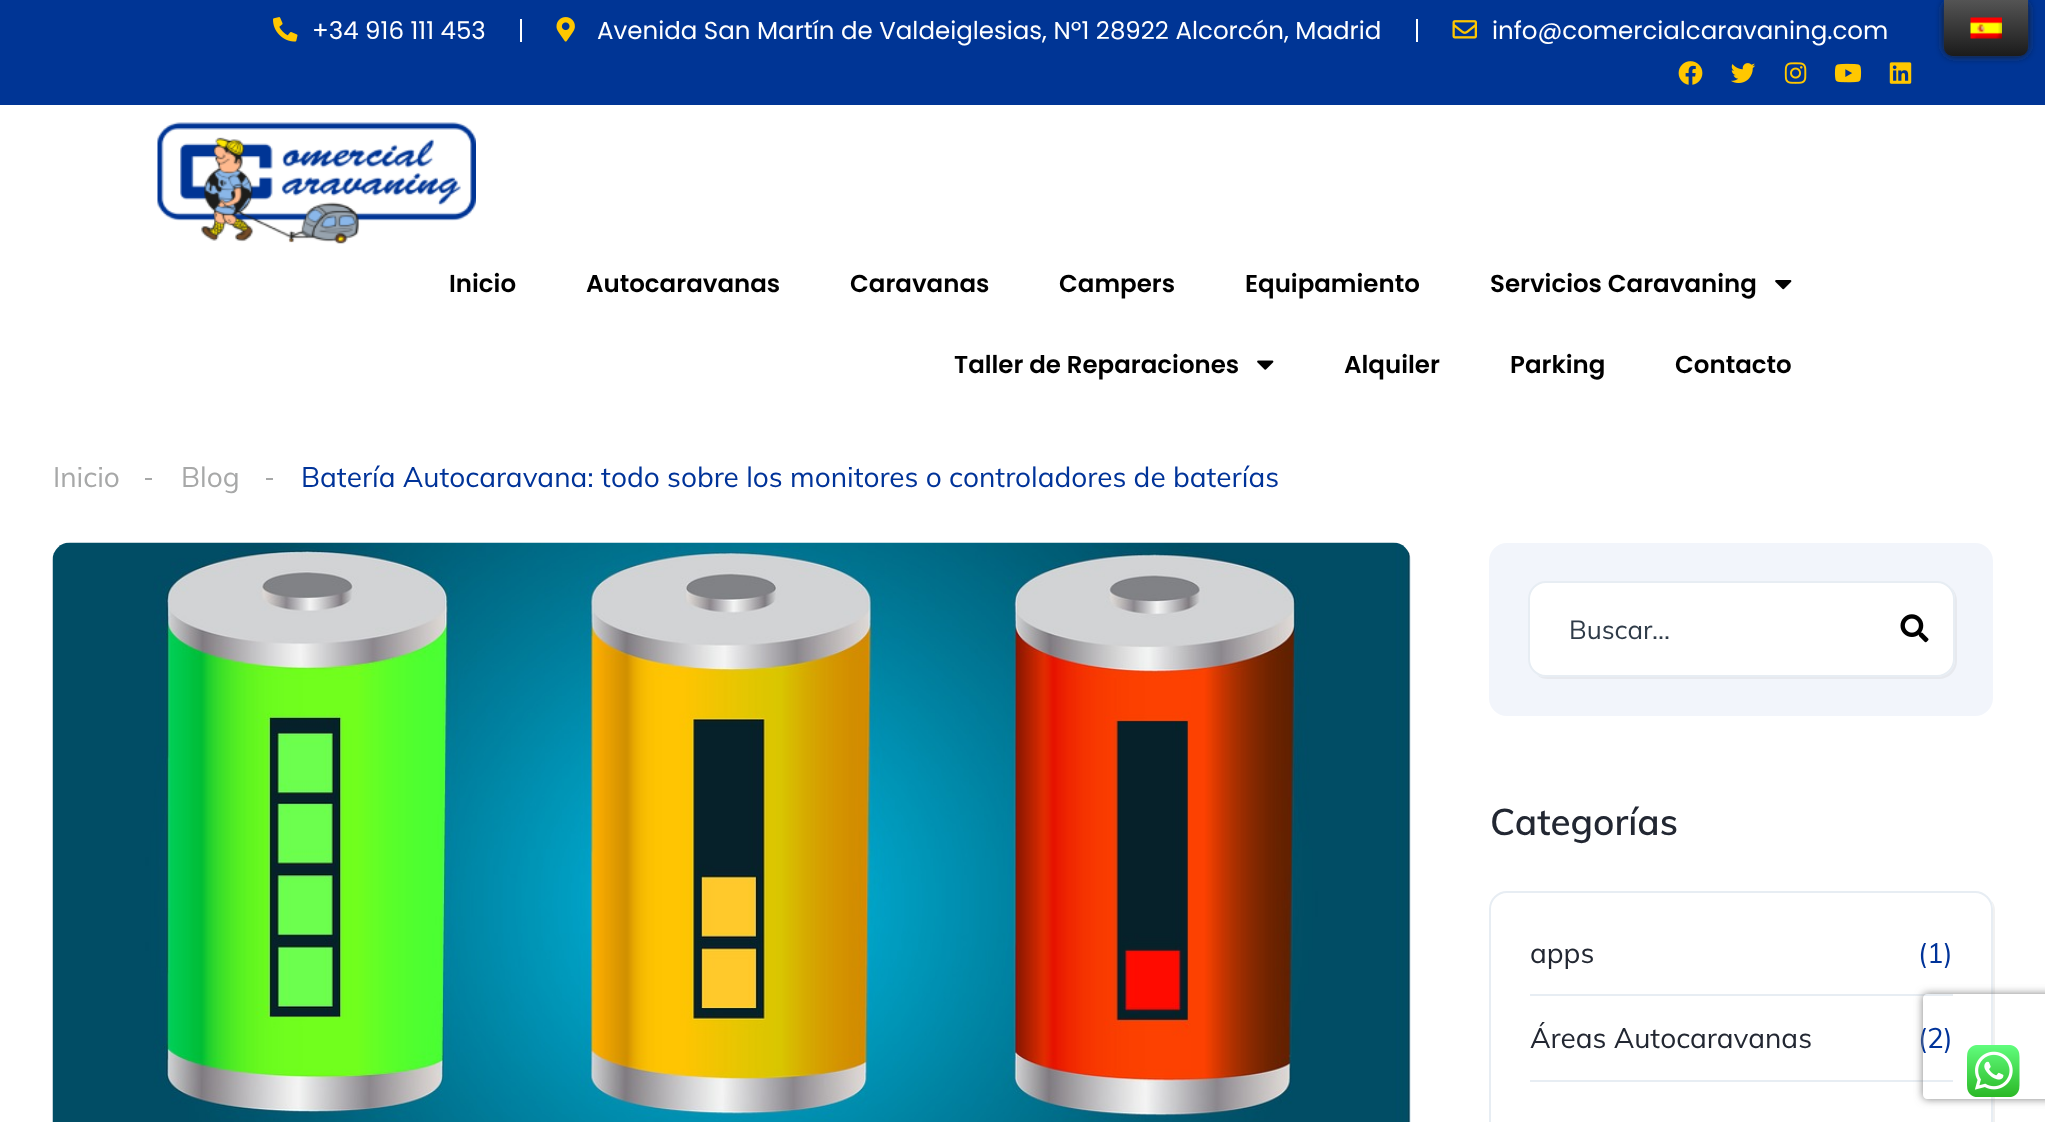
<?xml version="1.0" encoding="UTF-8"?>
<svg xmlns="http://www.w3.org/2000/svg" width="2045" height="1122">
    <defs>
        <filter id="blur1" x="-50%" y="-200%" width="200%" height="500%"><feGaussianBlur stdDeviation="4.5"/></filter>
        <linearGradient id="g1" gradientUnits="userSpaceOnUse" x1="1986" y1="56" x2="1986" y2="0"><stop offset="0" stop-color="#1B1B1B"/><stop offset="1" stop-color="#545454"/></linearGradient>
        <clipPath id="clip1"><path d="M 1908 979 H 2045 V 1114 H 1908 Z M 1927 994 H 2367 C 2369 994 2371 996 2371 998 V 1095 C 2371 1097 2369 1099 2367 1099 H 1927 C 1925 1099 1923 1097 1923 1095 V 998 C 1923 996 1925 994 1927 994 Z" clip-rule="evenodd"/></clipPath>
    </defs>
    <rect width="100%" height="100%" fill="#FFFFFF"/>
    <rect x="0" y="0" width="2045" height="105" fill="#003595"/>
    <image x="273" y="17" width="25" height="25" href="img_01.png"/>
    <text x="312" y="39" font-family="Poppins" font-size="24.5" fill="#FFFFFF">+34 916 111 453</text>
    <rect x="520" y="19" width="2" height="23" fill="#FFFFFF"/>
    <image x="556" y="17" width="19" height="25" href="img_02.png"/>
    <text x="597" y="39" font-family="Poppins" font-size="24.5" fill="#FFFFFF">Avenida San Martín de Valdeiglesias, Nº1 28922 Alcorcón, Madrid</text>
    <rect x="1416" y="19" width="2" height="23" fill="#FFFFFF"/>
    <image x="1452" y="20" width="25" height="19" href="img_03.png"/>
    <text x="1492" y="39" font-family="Poppins" font-size="24.5" fill="#FFFFFF">info@comercialcaravaning.com</text>
    <image x="1678" y="61" width="25" height="24" href="img_04.png"/>
    <image x="1731" y="63" width="25" height="20" href="img_05.png"/>
    <image x="1784" y="62" width="23" height="22" href="img_06.png"/>
    <image x="1834" y="63" width="28" height="20" href="img_07.png"/>
    <image x="1889" y="62" width="23" height="22" href="img_08.png"/>
    <image x="157" y="122" width="319" height="122" href="img_09.png"/>
    <text x="449" y="292" font-family="Poppins" font-size="24.5" font-weight="600" fill="#000000">Inicio</text>
    <text x="586" y="292" font-family="Poppins" font-size="24.5" font-weight="600" fill="#000000">Autocaravanas</text>
    <text x="850" y="292" font-family="Poppins" font-size="24.5" font-weight="600" fill="#000000">Caravanas</text>
    <text x="1059" y="292" font-family="Poppins" font-size="24.5" font-weight="600" fill="#000000">Campers</text>
    <text x="1245" y="292" font-family="Poppins" font-size="24.5" font-weight="600" fill="#000000">Equipamiento</text>
    <text x="1490" y="292" font-family="Poppins" font-size="24.5" font-weight="600" fill="#000000">Servicios Caravaning</text>
    <image x="1775" y="280" width="17" height="10" href="img_10.png"/>
    <text x="954" y="373" font-family="Poppins" font-size="24.5" font-weight="600" fill="#000000">Taller de Reparaciones</text>
    <image x="1257" y="360" width="17" height="10" href="img_11.png"/>
    <text x="1344" y="373" font-family="Poppins" font-size="24.5" font-weight="600" fill="#000000">Alquiler</text>
    <text x="1510" y="373" font-family="Poppins" font-size="24.5" font-weight="600" fill="#000000">Parking</text>
    <text x="1675" y="373" font-family="Poppins" font-size="24.5" font-weight="600" fill="#000000">Contacto</text>
    <rect x="1944" y="0" width="84" height="56" rx="9" fill="#212121" filter="url(#blur1)"/>
    <path d="M 1944 0 H 2028 V 47 C 2028 52 2024 56 2019 56 H 1953 C 1948 56 1944 52 1944 47 Z" fill="url(#g1)"/>
    <image x="1970" y="17" width="32" height="22" href="img_12.png"/>
    <text x="53" y="487" font-family="Muli" font-size="28" fill="#A7A8A8">Inicio</text>
    <rect x="145" y="478" width="7" height="2" fill="#A7A8A8"/>
    <text x="181" y="487" font-family="Muli" font-size="28" fill="#A7A8A8">Blog</text>
    <rect x="266" y="478" width="7" height="2" fill="#A7A8A8"/>
    <text x="301" y="487" font-family="Muli" font-size="28" fill="#003399">Batería Autocaravana: todo sobre los monitores o controladores de baterías</text>
    <image x="52" y="542" width="1359" height="580" href="img_13.png"/>
    <rect x="1489" y="543" width="504" height="173" rx="18" fill="#F2F5FB"/>
    <path d="M 1537 675 C 1540 678 1544 679 1548 679 H 1939 C 1949 679 1957 671 1957 661 V 601 C 1957 596 1955 591 1951 587 C 1953 590 1955 594 1955 598 V 660 C 1955 669 1947 677 1937 677 H 1545 C 1542 677 1539 676 1537 675 Z" fill="#E7E9EE"/>
    <rect x="1529" y="582" width="425" height="94" rx="17" fill="#FFFFFF" stroke="#E7EDF3" stroke-width="2"/>
    <text x="1569" y="639" font-family="Muli" font-size="26" fill="#2F3B48">Buscar...</text>
    <image x="1900" y="614" width="29" height="29" href="img_14.png"/>
    <text x="1490" y="835" font-family="Muli" font-size="36.75" font-weight="600" fill="#222732">Categorías</text>
    <path d="M 1495 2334 C 1499 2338 1504 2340 1509 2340 H 1977 C 1987 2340 1995 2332 1995 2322 V 911 C 1995 907 1994 903 1991 900 C 1992 902 1993 905 1993 908 V 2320 C 1993 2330 1985 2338 1976 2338 H 1507 C 1502 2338 1499 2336 1495 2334 Z" fill="#F1F1F1"/>
    <rect x="1490" y="892" width="502" height="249" rx="17" fill="none" stroke="#E7EDF3" stroke-width="2"/>
    <rect x="1530" y="994" width="423" height="2" fill="#E7EDF3"/>
    <text x="1530" y="963" font-family="Muli" font-size="28" fill="#222732">apps</text>
    <text x="1918" y="963" font-family="Muli" font-size="28" fill="#003399">(1)</text>
    <rect x="1530" y="1080" width="423" height="2" fill="#E7EDF3"/>
    <text x="1530" y="1048" font-family="Muli" font-size="28" fill="#222732">Áreas Autocaravanas</text>
    <text x="1918" y="1048" font-family="Muli" font-size="28" fill="#003399">(2)</text>
    <g clip-path="url(#clip1)">
        <rect x="1923" y="994" width="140" height="105" rx="4" fill="#808080" filter="url(#blur1)"/>
    </g>
    <image x="1967" y="1045" width="53" height="52" href="img_15.png"/>
</svg>
